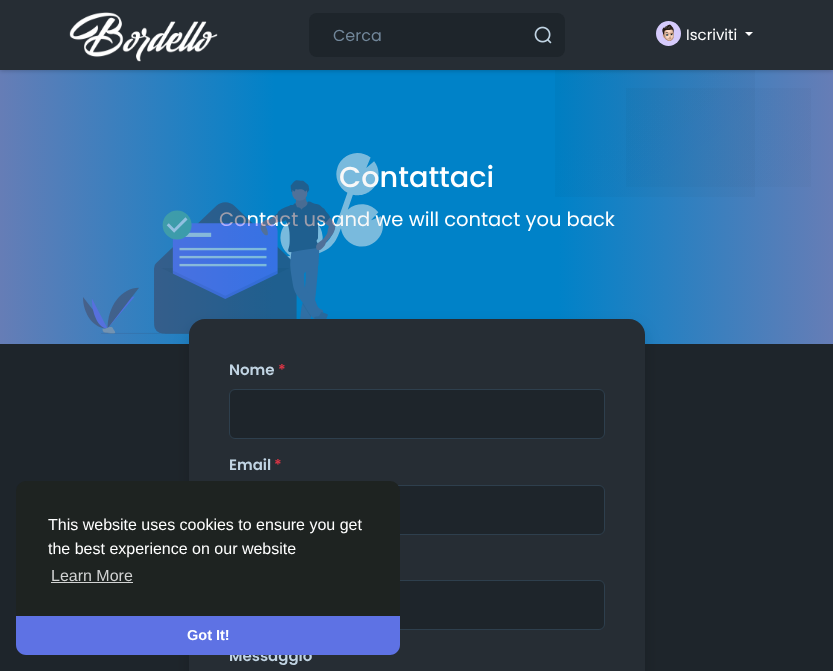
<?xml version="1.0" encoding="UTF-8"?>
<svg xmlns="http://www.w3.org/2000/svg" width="833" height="671">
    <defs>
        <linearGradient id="g1" gradientUnits="userSpaceOnUse" x1="0" y1="207" x2="833" y2="207"><stop offset="0" stop-color="#667DB6"/><stop offset="0.33" stop-color="#0082C8"/><stop offset="0.67" stop-color="#0082C8"/><stop offset="1" stop-color="#667DB6"/></linearGradient>
        <filter id="blur1" x="-50%" y="-200%" width="200%" height="500%"><feGaussianBlur stdDeviation="8"/></filter>
        <radialGradient id="g2" gradientUnits="userSpaceOnUse" cx="625" cy="-38" r="800"><stop offset="0" stop-color="#000000" stop-opacity="0.03"/><stop offset="1" stop-color="#000000" stop-opacity="0"/></radialGradient>
        <radialGradient id="g3" gradientUnits="userSpaceOnUse" cx="575" cy="-53" r="800"><stop offset="0" stop-color="#000000" stop-opacity="0.04"/><stop offset="1" stop-color="#000000" stop-opacity="0"/></radialGradient>
        <filter id="blur2" x="-50%" y="-200%" width="200%" height="500%"><feGaussianBlur stdDeviation="2"/></filter>
    </defs>
    <rect width="100%" height="100%" fill="#1E252B"/>
    <rect x="0" y="70" width="833" height="274" fill="url(#g1)"/>
    <text x="339" y="187" font-family="Poppins" font-size="28.75" font-weight="500" fill="#FFFFFF">Contattaci</text>
    <text x="219" y="226" font-family="Poppins" font-size="19.5" fill="#FFFFFF">Contact us and we will contact you back</text>
    <image x="83" y="153" width="300" height="181" href="img_04.png"/>
    <rect x="189" y="327" width="456" height="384" rx="16" fill="#000000" fill-opacity="0.15" filter="url(#blur1)"/>
    <rect x="189" y="319" width="456" height="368" rx="16" fill="#262D34"/>
    <rect x="229.5" y="485.5" width="375" height="49" rx="5.5" fill="#1E252B" stroke="#2E3F4D"/>
    <rect x="229.5" y="580.5" width="375" height="49" rx="5.5" fill="#1E252B" stroke="#2E3F4D"/>
    <text x="229" y="661" font-family="Poppins" font-size="15" font-weight="600" fill="#C1D4E3">Messaggio</text>
    <rect x="16" y="481" width="384" height="174" rx="10" fill="#1E2321"/>
    <text font-family="Liberation Sans" font-size="16" fill="#FFFFFF">
        <tspan x="48" y="530">This website uses cookies to ensure you get</tspan>
        <tspan x="48" y="554">the best experience on our website</tspan>
    </text>
    <text x="51" y="581" font-family="Liberation Sans" font-size="16" fill="#D2D3D3">Learn More</text>
    <rect x="51" y="582" width="82" height="1" fill="#D2D3D3"/>
    <path d="M 16 616 H 400 V 645 C 400 650.5 395.5 655 390 655 H 26 C 20.5 655 16 650.5 16 645 Z" fill="#5E72E4"/>
    <text x="187" y="640" font-family="Liberation Sans" font-size="14.5" font-weight="700" fill="#FFFFFF">Got It!</text>
    <rect x="626" y="88" width="185" height="99" fill="url(#g2)"/>
    <rect x="555" y="70" width="200" height="127" fill="url(#g3)"/>
    <rect x="0" y="1" width="833" height="70" fill="#000000" fill-opacity="0.2" filter="url(#blur2)"/>
    <rect x="0" y="0" width="833" height="70" fill="#262D34"/>
    <image x="69" y="12" width="149" height="50" href="img_01.png"/>
    <rect x="309" y="13" width="256" height="44" rx="8" fill="#1E252B"/>
    <text x="333" y="41" font-family="Poppins" font-size="16" fill="#72879A">Cerca</text>
    <image x="534" y="26" width="18" height="18" href="img_02.png"/>
    <image x="656" y="21" width="25" height="25" href="img_03.png"/>
    <text x="686" y="40" font-family="Poppins" font-size="15" fill="#FFFFFF">Iscriviti</text>
    <path d="M 745 32 H 753 L 749 36 Z" fill="#FFFFFF"/>
    <text x="229" y="375" font-family="Poppins" font-size="15" font-weight="600" fill="#C1D4E3">Nome</text>
    <text x="278" y="375" font-family="Poppins" font-size="15" font-weight="600" fill="#DC3545">*</text>
    <rect x="229.5" y="389.5" width="375" height="49" rx="5.5" fill="#1E252B" stroke="#2E3F4D"/>
    <text x="229" y="470" font-family="Poppins" font-size="15" font-weight="600" fill="#C1D4E3">Email</text>
    <text x="274" y="470" font-family="Poppins" font-size="15" font-weight="600" fill="#DC3545">*</text>
</svg>
